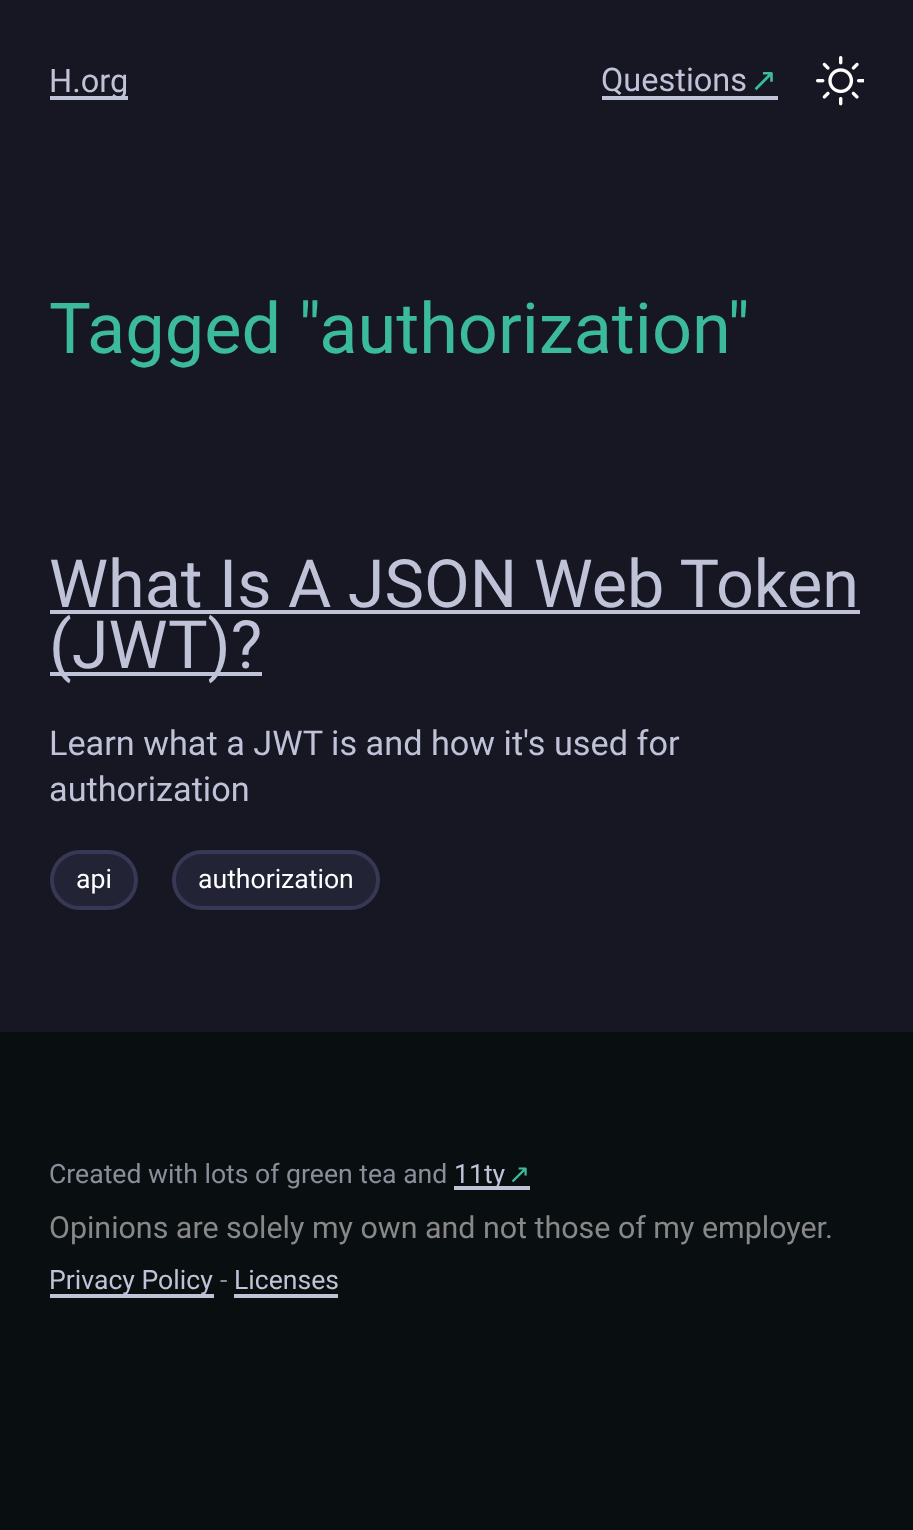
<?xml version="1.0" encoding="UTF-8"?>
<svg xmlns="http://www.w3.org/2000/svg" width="913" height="1530">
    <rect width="100%" height="100%" fill="#090F10"/>
    <rect x="0" y="0" width="913" height="1032" fill="#161723"/>
    <rect x="50" y="96" width="78" height="4" fill="#C0C3D8"/>
    <text x="49" y="92" font-family="Roboto" font-size="32.5" fill="#C0C3D8">H.org</text>
    <text x="601" y="91" font-family="Roboto" font-size="32.5" fill="#C0C3D8">Questions</text>
    <text x="750" y="91" font-family="DejaVu Sans" font-size="32.5" fill="#3BBA9C">↗</text>
    <rect x="602" y="96" width="176" height="4" fill="#C0C3D8"/>
    <image x="816" y="56" width="48" height="50" href="img_01.png"/>
    <text x="49" y="353" font-family="Roboto" font-size="70.25" fill="#3BBA9C">Tagged "authorization"</text>
    <text x="49" y="607" font-family="Roboto" font-size="66.5" fill="#C0C3D8">What Is A JSON Web Token</text>
    <rect x="50" y="610" width="810" height="4" fill="#C0C3D8"/>
    <rect x="50" y="672" width="212" height="4" fill="#C0C3D8"/>
    <text x="49" y="668" font-family="Roboto" font-size="66.5" fill="#C0C3D8">(JWT)?</text>
    <text font-family="Roboto" font-size="34.25" fill="#C0C3D8">
        <tspan x="49" y="755">Learn what a JWT is and how it's used for</tspan>
        <tspan x="49" y="801">authorization</tspan>
    </text>
    <rect x="52" y="852" width="84" height="56" rx="28" fill="#222335" stroke="#363854" stroke-width="4"/>
    <text x="76" y="888" font-family="Roboto" font-size="26.6" fill="#FFFFFF">api</text>
    <rect x="174" y="852" width="204" height="56" rx="28" fill="#222335" stroke="#363854" stroke-width="4"/>
    <text x="198" y="888" font-family="Roboto" font-size="26.6" fill="#FFFFFF">authorization</text>
    <text x="49" y="1183" font-family="Roboto" font-size="26.6" fill="#8B8D9A">Created with lots of green tea and</text>
    <rect x="454" y="1186" width="52" height="4" fill="#C0C3D8"/>
    <text x="454" y="1183" font-family="Roboto" font-size="26.6" fill="#C0C3D8">11ty</text>
    <rect x="502" y="1186" width="28" height="4" fill="#C0C3D8"/>
    <text x="508" y="1183" font-family="DejaVu Sans" font-size="26.6" fill="#3BBA9C">↗</text>
    <text x="49" y="1238" font-family="Roboto" font-size="30.4" fill="#888888">Opinions are solely my own and not those of my employer.</text>
    <rect x="50" y="1294" width="164" height="4" fill="#C0C3D8"/>
    <text x="49" y="1289" font-family="Roboto" font-size="26.6" fill="#C0C3D8">Privacy Policy</text>
    <text x="220" y="1289" font-family="Roboto" font-size="26.6" fill="#8B8D9A">-</text>
    <text x="234" y="1289" font-family="Roboto" font-size="26.6" fill="#C0C3D8">Licenses</text>
    <rect x="234" y="1294" width="104" height="4" fill="#C0C3D8"/>
</svg>
